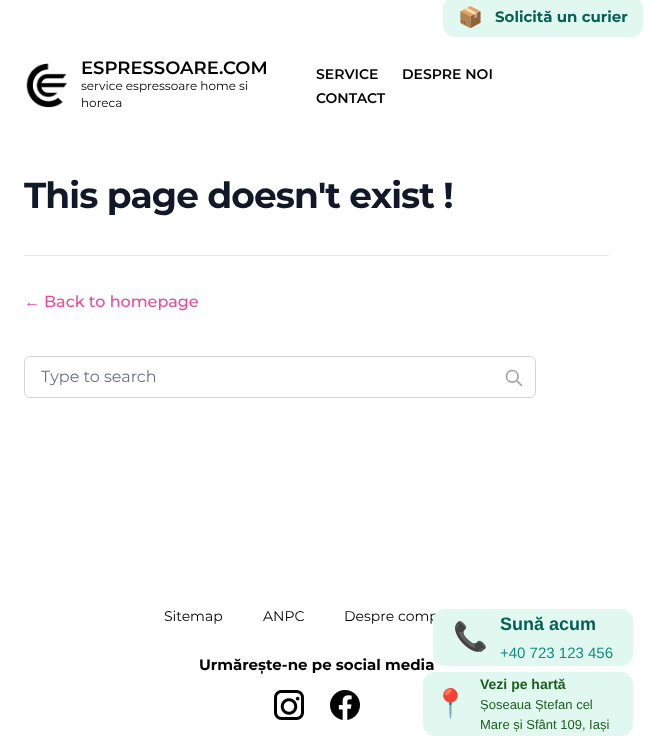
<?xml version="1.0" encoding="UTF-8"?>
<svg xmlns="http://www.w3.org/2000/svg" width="653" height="756">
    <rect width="100%" height="100%" fill="#FFFFFF"/>
    <rect x="443" y="-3" width="200" height="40" rx="12" fill="#E0F8F0"/>
    <text x="458" y="24" font-family="Noto Color Emoji" font-size="20" fill="#075E54">📦</text>
    <text x="495" y="22" font-family="Montserrat" font-size="15" font-weight="700" fill="#075E54">Solicită un curier</text>
    <image x="26" y="63" width="42" height="45" href="img_01.png"/>
    <text x="81" y="74" font-family="Montserrat" font-size="18" font-weight="600" fill="#000000">ESPRESSOARE.COM</text>
    <text font-family="Montserrat" font-size="12" fill="#000000">
        <tspan x="81" y="90">service espressoare home si</tspan>
        <tspan x="81" y="107">horeca</tspan>
    </text>
    <text x="316" y="79" font-family="Montserrat" font-size="14" font-weight="600" fill="#000000">SERVICE</text>
    <text x="402" y="79" font-family="Montserrat" font-size="14" font-weight="600" fill="#000000">DESPRE NOI</text>
    <text x="316" y="103" font-family="Montserrat" font-size="14" font-weight="600" fill="#000000">CONTACT</text>
    <text x="24" y="208" font-family="Montserrat" font-size="36" font-weight="700" letter-spacing="-0.9" fill="#111827">This page doesn't exist !</text>
    <rect x="24" y="255" width="585" height="1" fill="#E5E7EB"/>
    <text x="24" y="307" font-family="Liberation Sans" font-size="16" fill="#EC4899">←</text>
    <text x="44" y="307" font-family="Montserrat" font-size="16" font-weight="500" fill="#EC4899">Back to homepage</text>
    <rect x="24.5" y="356.5" width="511" height="41" rx="5.5" fill="none" stroke="#D1D5DB"/>
    <text x="41" y="382" font-family="Montserrat" font-size="16" fill="#6B7280">Type to search</text>
    <path d="M 521.5 385.5 L 516.5 380.5 M 518 376.5 C 518 384 506.5 384 506.5 376.5 C 506.5 368.5 518 368.5 518 376.5 Z" fill="none" stroke="#9CA3AF" stroke-width="1.7" stroke-linecap="round" stroke-linejoin="round"/>
    <text x="164" y="621" font-family="Montserrat" font-size="14" fill="#000000">Sitemap</text>
    <text x="263" y="621" font-family="Montserrat" font-size="14" fill="#000000">ANPC</text>
    <text x="344" y="621" font-family="Montserrat" font-size="14" fill="#000000">Despre comp</text>
    <text x="199" y="670" font-family="Montserrat" font-size="15" font-weight="700" fill="#000000">Urmărește-ne pe social media</text>
    <image x="274" y="690" width="30" height="30" href="img_02.png"/>
    <image x="330" y="690" width="30" height="30" href="img_03.png"/>
    <rect x="433" y="609" width="200" height="57" rx="12" fill="#E0F8F0"/>
    <text x="453" y="646" font-family="Noto Color Emoji" font-size="28" fill="#075E54">📞</text>
    <text x="500" y="630" font-family="Liberation Sans" font-size="18" font-weight="700" fill="#075E54">Sună acum</text>
    <text x="500" y="658" font-family="Liberation Sans" font-size="15" fill="#128C7E">+40 723 123 456</text>
    <rect x="423" y="672" width="210" height="64" rx="12" fill="#E0F8F0"/>
    <text x="433" y="713" font-family="Noto Color Emoji" font-size="28" fill="#1B5E20">📍</text>
    <text x="480" y="689" font-family="Liberation Sans" font-size="14" font-weight="700" fill="#1B5E20">Vezi pe hartă</text>
    <text font-family="Liberation Sans" font-size="13" fill="#1B5E20">
        <tspan x="480" y="709">Șoseaua Ștefan cel</tspan>
        <tspan x="480" y="729">Mare și Sfânt 109, Iași</tspan>
    </text>
</svg>
